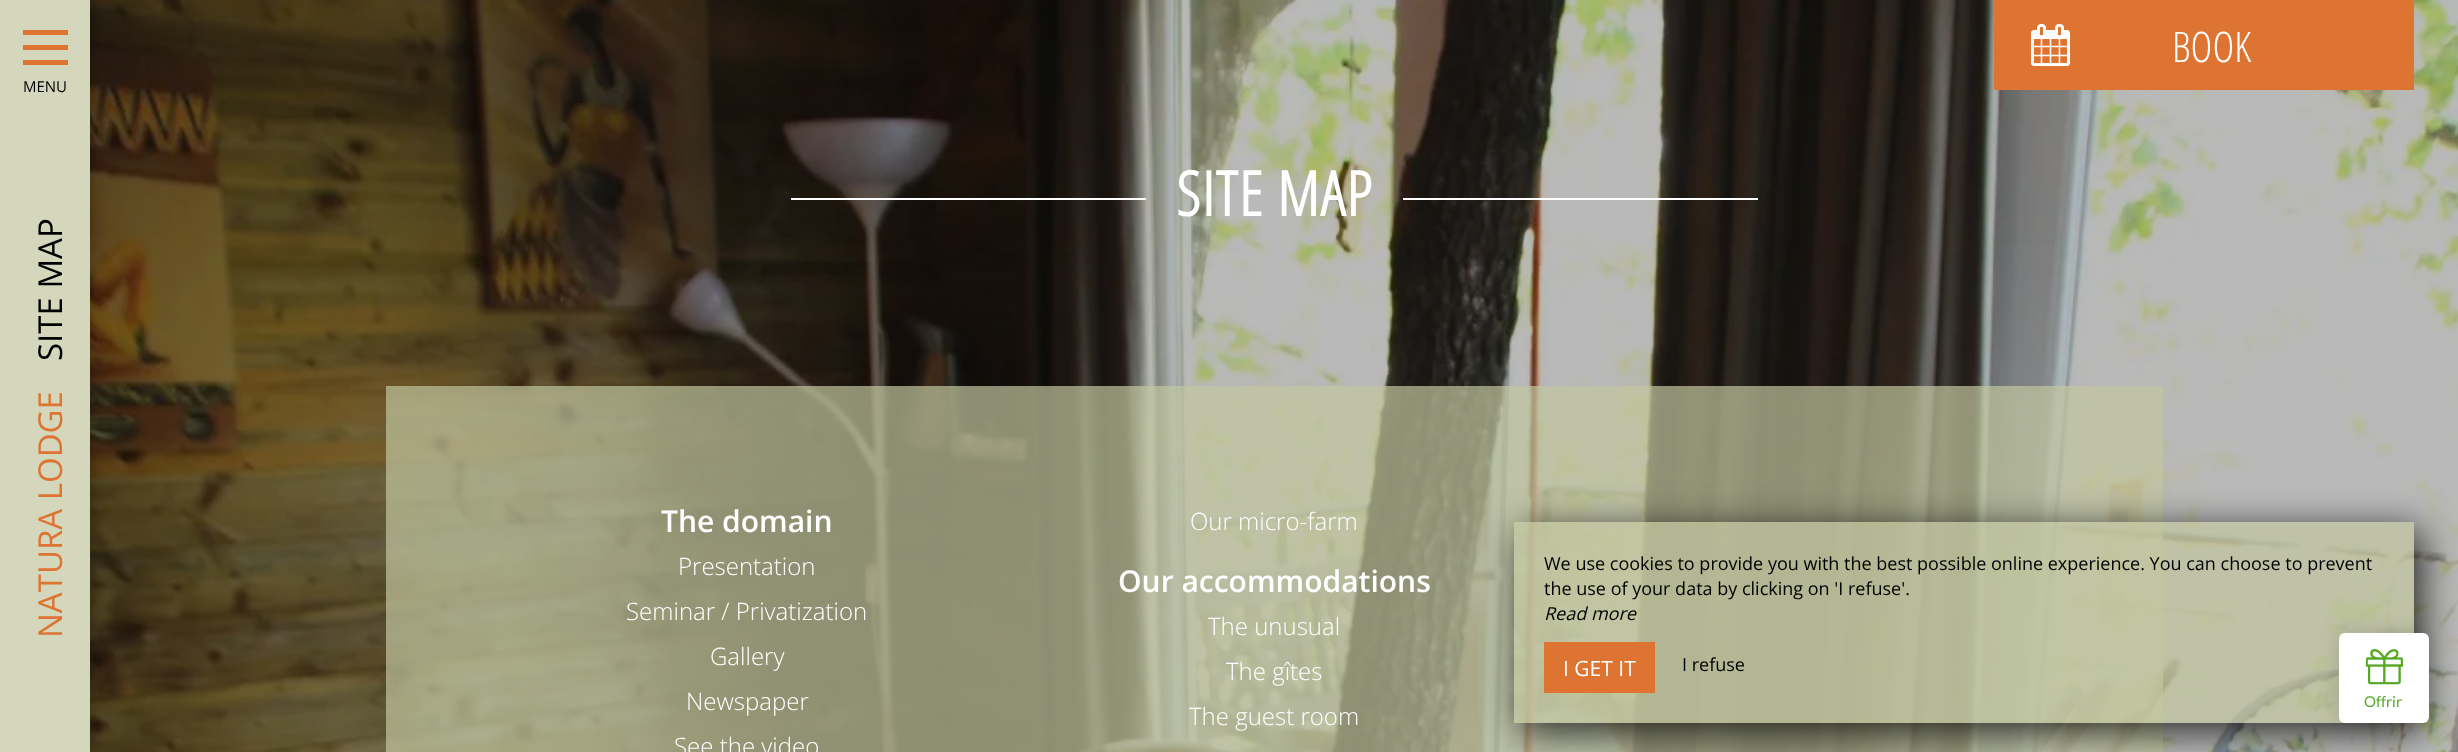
<?xml version="1.0" encoding="UTF-8"?>
<svg xmlns="http://www.w3.org/2000/svg" width="2458" height="752">
    <defs>
        <filter id="blur1" x="-50%" y="-200%" width="200%" height="500%"><feGaussianBlur stdDeviation="7.5"/></filter>
        <clipPath id="clip1"><path d="M 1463 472 H 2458 V 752 H 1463 Z M 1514 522 H 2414 V 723 H 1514 Z" clip-rule="evenodd"/></clipPath>
        <filter id="blur2" x="-50%" y="-200%" width="200%" height="500%"><feGaussianBlur stdDeviation="19"/></filter>
        <clipPath id="clip2"><path d="M 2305 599 H 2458 V 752 H 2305 Z M 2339 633 H 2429 V 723 H 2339 Z" clip-rule="evenodd"/></clipPath>
        <filter id="blur3" x="-50%" y="-200%" width="200%" height="500%"><feGaussianBlur stdDeviation="11"/></filter>
    </defs>
    <rect width="100%" height="100%" fill="#FFFFFF"/>
    <image x="90" y="0" width="2368" height="752" href="img_02.png"/>
    <rect x="0" y="0" width="90" height="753" fill="#000000" fill-opacity="0.3" filter="url(#blur1)"/>
    <rect x="0" y="0" width="90" height="752" fill="#D4D7BC"/>
    <rect x="23" y="30" width="45" height="5" fill="#DE7431"/>
    <rect x="23" y="45" width="45" height="5" fill="#DE7431"/>
    <rect x="23" y="60" width="45" height="5" fill="#DE7431"/>
    <text x="23" y="92" font-family="Open Sans" font-size="15" fill="#000000">MENU</text>
    <text x="62" y="361" transform="rotate(-90 62 361)" font-family="Open Sans" font-size="33" fill="#000000">SITE MAP</text>
    <text x="62" y="638" transform="rotate(-90 62 638)" font-family="Open Sans" font-size="33" fill="#DE7431">NATURA LODGE</text>
    <rect x="1994" y="0" width="420" height="90" fill="#DE7431"/>
    <image x="2031" y="24" width="39" height="42" href="img_01.png"/>
    <text x="2172" y="62" font-family="Open Sans Condensed" font-size="42" font-weight="300" fill="#FFFFFF">BOOK</text>
    <rect x="791" y="198" width="355" height="2" fill="#FFFFFF"/>
    <text x="1176" y="216" font-family="Open Sans Condensed" font-size="61.5" font-weight="700" letter-spacing="1.5" fill="#FFFFFF">SITE MAP</text>
    <rect x="1403" y="198" width="355" height="2" fill="#FFFFFF"/>
    <rect x="386" y="386" width="1777" height="366" fill="#C2C69F" fill-opacity="0.7"/>
    <text x="661" y="532" font-family="Open Sans" font-size="30" font-weight="600" fill="#FFFFFF">The domain</text>
    <text x="678" y="575" font-family="Open Sans" font-size="24" font-weight="300" fill="#FFFFFF">Presentation</text>
    <text x="626" y="620" font-family="Open Sans" font-size="24" font-weight="300" fill="#FFFFFF">Seminar / Privatization</text>
    <text x="710" y="665" font-family="Open Sans" font-size="24" font-weight="300" fill="#FFFFFF">Gallery</text>
    <text x="686" y="710" font-family="Open Sans" font-size="24" font-weight="300" fill="#FFFFFF">Newspaper</text>
    <text x="674" y="755" font-family="Open Sans" font-size="24" font-weight="300" fill="#FFFFFF">See the video</text>
    <text x="1190" y="530" font-family="Open Sans" font-size="24" font-weight="300" fill="#FFFFFF">Our micro-farm</text>
    <text x="1118" y="592" font-family="Open Sans" font-size="30" font-weight="600" fill="#FFFFFF">Our accommodations</text>
    <text x="1208" y="635" font-family="Open Sans" font-size="24" font-weight="300" fill="#FFFFFF">The unusual</text>
    <text x="1226" y="680" font-family="Open Sans" font-size="24" font-weight="300" fill="#FFFFFF">The gîtes</text>
    <text x="1189" y="725" font-family="Open Sans" font-size="24" font-weight="300" fill="#FFFFFF">The guest room</text>
    <g clip-path="url(#clip1)">
        <rect x="1521" y="530" width="900" height="201" fill="#000000" fill-opacity="0.8" filter="url(#blur2)"/>
    </g>
    <rect x="1514" y="522" width="900" height="201" fill="#C2C69F" fill-opacity="0.7"/>
    <text font-family="Open Sans" font-size="18" fill="#000000">
        <tspan x="1544" y="570">We use cookies to provide you with the best possible online experience. You can choose to prevent</tspan>
        <tspan x="1544" y="595">the use of your data by clicking on 'I refuse'.</tspan>
    </text>
    <text x="1544" y="620" font-family="Open Sans" font-size="18" font-style="italic" fill="#000000">Read more</text>
    <rect x="1544" y="642" width="111" height="51" fill="#DE7431"/>
    <text x="1563" y="676" font-family="Open Sans" font-size="21" fill="#FFFFFF">I GET IT</text>
    <text x="1682" y="671" font-family="Open Sans" font-size="18" fill="#000000">I refuse</text>
    <g clip-path="url(#clip2)">
        <rect x="2339" y="633" width="90" height="90" fill="#000000" fill-opacity="0.15" filter="url(#blur3)"/>
    </g>
    <rect x="2339" y="633" width="90" height="90" rx="6" fill="#FFFFFF"/>
    <image x="2366" y="649" width="37" height="36" href="img_03.png"/>
    <text x="2364" y="707" font-family="Lato" font-size="15" fill="#58A828">Offrir</text>
</svg>
